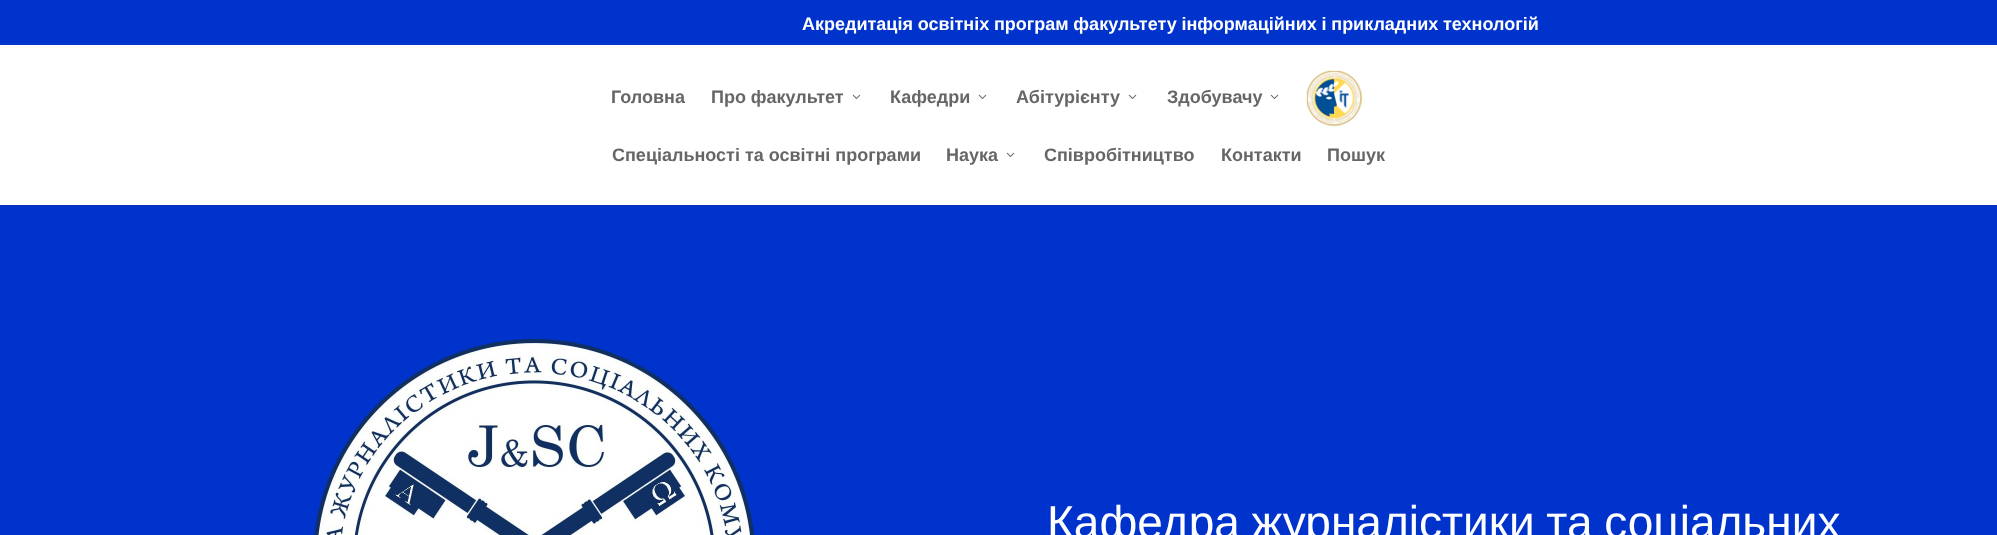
<?xml version="1.0" encoding="UTF-8"?>
<svg xmlns="http://www.w3.org/2000/svg" width="1997" height="535">
    <rect width="100%" height="100%" fill="#FFFFFF"/>
    <rect x="0" y="0" width="1997" height="45" fill="#0033CC"/>
    <text x="802" y="30" word-spacing="-0.25" font-family="Liberation Sans" font-size="18" font-weight="700" fill="#FFFFFF">Акредитація освітніх програм факультету інформаційних і прикладних технологій</text>
    <rect x="0" y="205" width="1997" height="1" fill="#002EB8"/>
    <text x="611" y="103" font-family="Liberation Sans" font-size="18" font-weight="700" fill="#666666">Головна</text>
    <text x="711" y="103" word-spacing="-0.25" font-family="Liberation Sans" font-size="18" font-weight="700" fill="#666666">Про факультет</text>
    <image x="852" y="94" width="9" height="5" href="img_01.png"/>
    <text x="890" y="103" font-family="Liberation Sans" font-size="18" font-weight="700" fill="#666666">Кафедри</text>
    <image x="978" y="94" width="9" height="5" href="img_01.png"/>
    <text x="1016" y="103" font-family="Liberation Sans" font-size="18" font-weight="700" fill="#666666">Абітурієнту</text>
    <image x="1128" y="94" width="9" height="5" href="img_01.png"/>
    <text x="1167" y="103" font-family="Liberation Sans" font-size="18" font-weight="700" fill="#666666">Здобувачу</text>
    <image x="1270" y="94" width="9" height="5" href="img_01.png"/>
    <image x="1306" y="70" width="57" height="57" href="img_02.png"/>
    <text x="612" y="161" font-family="Liberation Sans" font-size="18" font-weight="700" fill="#666666">Спеціальності та освітні програми</text>
    <text x="946" y="161" font-family="Liberation Sans" font-size="18" font-weight="700" fill="#666666">Наука</text>
    <image x="1006" y="152" width="9" height="5" href="img_01.png"/>
    <text x="1044" y="161" font-family="Liberation Sans" font-size="18" font-weight="700" fill="#666666">Співробітництво</text>
    <text x="1221" y="161" font-family="Liberation Sans" font-size="18" font-weight="700" fill="#666666">Контакти</text>
    <text x="1327" y="161" font-family="Liberation Sans" font-size="18" font-weight="700" fill="#666666">Пошук</text>
    <rect x="0" y="206" width="1997" height="329" fill="#0033CC"/>
    <image x="314" y="339" width="441" height="196" href="img_03.png"/>
    <text x="1047" y="538" word-spacing="-1" font-family="Liberation Sans" font-size="46" fill="#FFFFFF">Кафедра журналістики та соціальних</text>
</svg>
